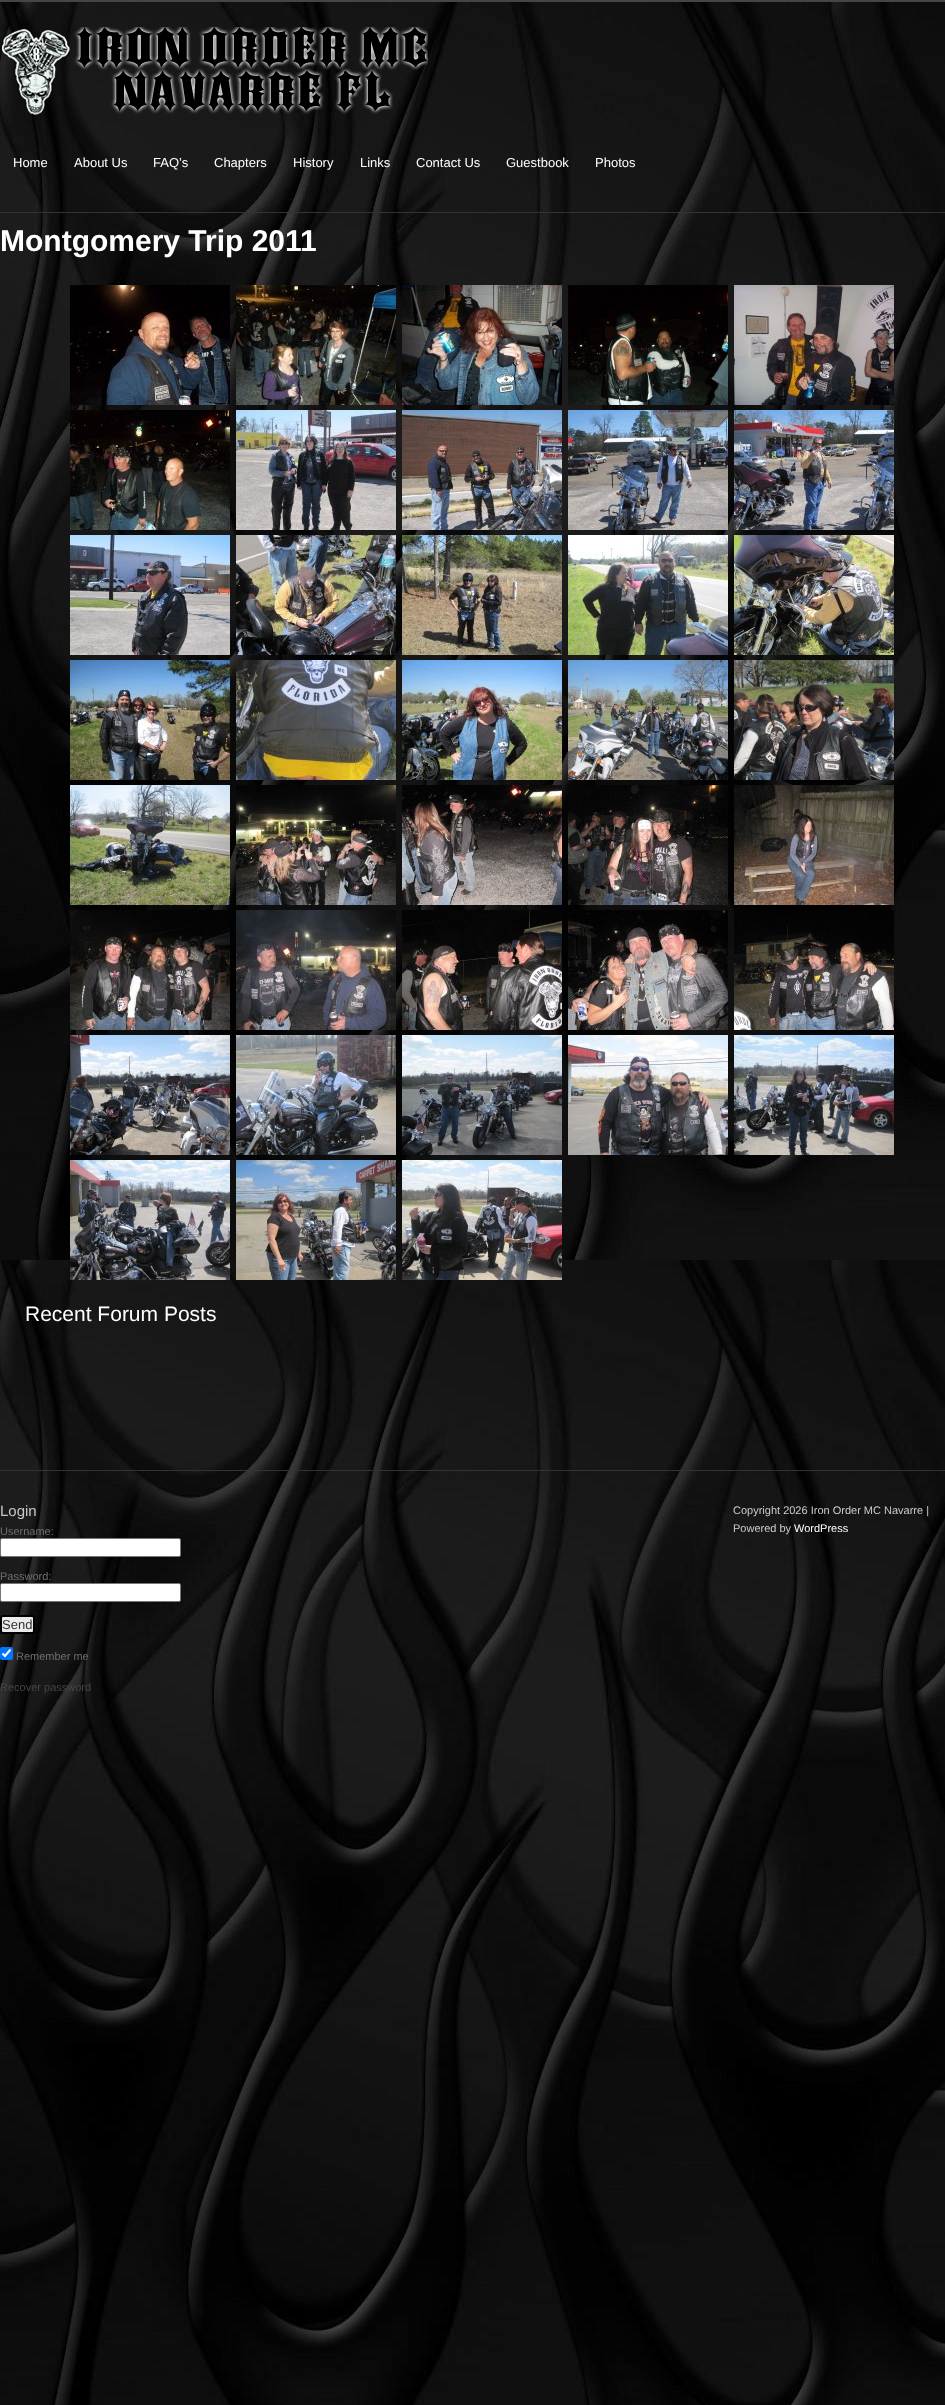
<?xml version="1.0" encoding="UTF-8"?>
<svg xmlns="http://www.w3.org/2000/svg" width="945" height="2405">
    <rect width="100%" height="100%" fill="#FFFFFF"/>
    <image x="0" y="2" width="945" height="2403" href="img_01.png"/>
    <rect x="0" y="0" width="945" height="2" fill="#484444"/>
    <image x="2" y="27" width="426" height="88" href="img_02.png"/>
    <text x="13" y="167" font-family="Liberation Sans" font-size="13" fill="#FFFFFF">Home</text>
    <text x="74" y="167" font-family="Liberation Sans" font-size="13" fill="#FFFFFF">About Us</text>
    <text x="153" y="167" font-family="Liberation Sans" font-size="13" fill="#FFFFFF">FAQ’s</text>
    <text x="214" y="167" font-family="Liberation Sans" font-size="13" fill="#FFFFFF">Chapters</text>
    <text x="293" y="167" font-family="Liberation Sans" font-size="13" fill="#FFFFFF">History</text>
    <text x="360" y="167" font-family="Liberation Sans" font-size="13" fill="#FFFFFF">Links</text>
    <text x="416" y="167" font-family="Liberation Sans" font-size="13" fill="#FFFFFF">Contact Us</text>
    <text x="506" y="167" font-family="Liberation Sans" font-size="13" fill="#FFFFFF">Guestbook</text>
    <text x="595" y="167" font-family="Liberation Sans" font-size="13" fill="#FFFFFF">Photos</text>
    <rect x="0" y="212" width="945" height="1" fill="#333333"/>
    <text x="0" y="251" font-family="Liberation Sans" font-size="30" font-weight="700" fill="#FFFFFF">Montgomery Trip 2011</text>
    <image x="70" y="285" width="160" height="120" href="img_03.png"/>
    <image x="236" y="285" width="160" height="120" href="img_04.png"/>
    <image x="402" y="285" width="160" height="120" href="img_05.png"/>
    <image x="568" y="285" width="160" height="120" href="img_06.png"/>
    <image x="734" y="285" width="160" height="120" href="img_07.png"/>
    <image x="70" y="410" width="160" height="120" href="img_08.png"/>
    <image x="236" y="410" width="160" height="120" href="img_09.png"/>
    <image x="402" y="410" width="160" height="120" href="img_10.png"/>
    <image x="568" y="410" width="160" height="120" href="img_11.png"/>
    <image x="734" y="410" width="160" height="120" href="img_12.png"/>
    <image x="70" y="535" width="160" height="120" href="img_13.png"/>
    <image x="236" y="535" width="160" height="120" href="img_14.png"/>
    <image x="402" y="535" width="160" height="120" href="img_15.png"/>
    <image x="568" y="535" width="160" height="120" href="img_16.png"/>
    <image x="734" y="535" width="160" height="120" href="img_17.png"/>
    <image x="70" y="660" width="160" height="120" href="img_18.png"/>
    <image x="236" y="660" width="160" height="120" href="img_19.png"/>
    <image x="402" y="660" width="160" height="120" href="img_20.png"/>
    <image x="568" y="660" width="160" height="120" href="img_21.png"/>
    <image x="734" y="660" width="160" height="120" href="img_22.png"/>
    <image x="70" y="785" width="160" height="120" href="img_23.png"/>
    <image x="236" y="785" width="160" height="120" href="img_24.png"/>
    <image x="402" y="785" width="160" height="120" href="img_25.png"/>
    <image x="568" y="785" width="160" height="120" href="img_26.png"/>
    <image x="734" y="785" width="160" height="120" href="img_27.png"/>
    <image x="70" y="910" width="160" height="120" href="img_28.png"/>
    <image x="236" y="910" width="160" height="120" href="img_29.png"/>
    <image x="402" y="910" width="160" height="120" href="img_30.png"/>
    <image x="568" y="910" width="160" height="120" href="img_31.png"/>
    <image x="734" y="910" width="160" height="120" href="img_32.png"/>
    <image x="70" y="1035" width="160" height="120" href="img_33.png"/>
    <image x="236" y="1035" width="160" height="120" href="img_34.png"/>
    <image x="402" y="1035" width="160" height="120" href="img_35.png"/>
    <image x="568" y="1035" width="160" height="120" href="img_36.png"/>
    <image x="734" y="1035" width="160" height="120" href="img_37.png"/>
    <image x="70" y="1160" width="160" height="120" href="img_38.png"/>
    <image x="236" y="1160" width="160" height="120" href="img_39.png"/>
    <image x="402" y="1160" width="160" height="120" href="img_40.png"/>
    <text x="25" y="1321" font-family="Liberation Sans" font-size="21" fill="#FFFFFF">Recent Forum Posts</text>
    <rect x="0" y="1470" width="945" height="1" fill="#333333"/>
    <text x="0" y="1516" font-family="Liberation Sans" font-size="15" fill="#C6C6C6">Login</text>
    <text x="0" y="1535" font-family="Liberation Sans" font-size="11" fill="#6F6F6F">Username:</text>
    <rect x="0.5" y="1538.5" width="180" height="18" rx="1.5" fill="#FFFFFF" stroke="#767676"/>
    <text x="0" y="1580" font-family="Liberation Sans" font-size="11" fill="#6F6F6F">Password:</text>
    <rect x="0.5" y="1583.5" width="180" height="18" rx="1.5" fill="#FFFFFF" stroke="#767676"/>
    <rect x="1" y="1616" width="33" height="17" rx="2" fill="#EBEBEB" stroke="#000000" stroke-width="2"/>
    <text x="2" y="1629" font-family="Liberation Sans" font-size="13" fill="#333333">Send</text>
    <rect x="0" y="1647" width="13" height="13" rx="2" fill="#0075FF"/>
    <path d="M 2.5 1653.5 L 5 1656 L 10.5 1649.5" fill="none" stroke="#FFFFFF" stroke-width="2.1"/>
    <text x="16" y="1660" font-family="Liberation Sans" font-size="11" fill="#6F6F6F">Remember me</text>
    <text x="0" y="1691" font-family="Liberation Sans" font-size="11" fill="#484444">Recover password</text>
    <text font-family="Liberation Sans" font-size="11" fill="#CCCCCC">
        <tspan x="733" y="1514">Copyright 2026 Iron Order MC Navarre |</tspan>
        <tspan x="733" y="1532">Powered by</tspan>
    </text>
    <text x="794" y="1532" font-family="Liberation Sans" font-size="11" fill="#FFFFFF">WordPress</text>
</svg>
